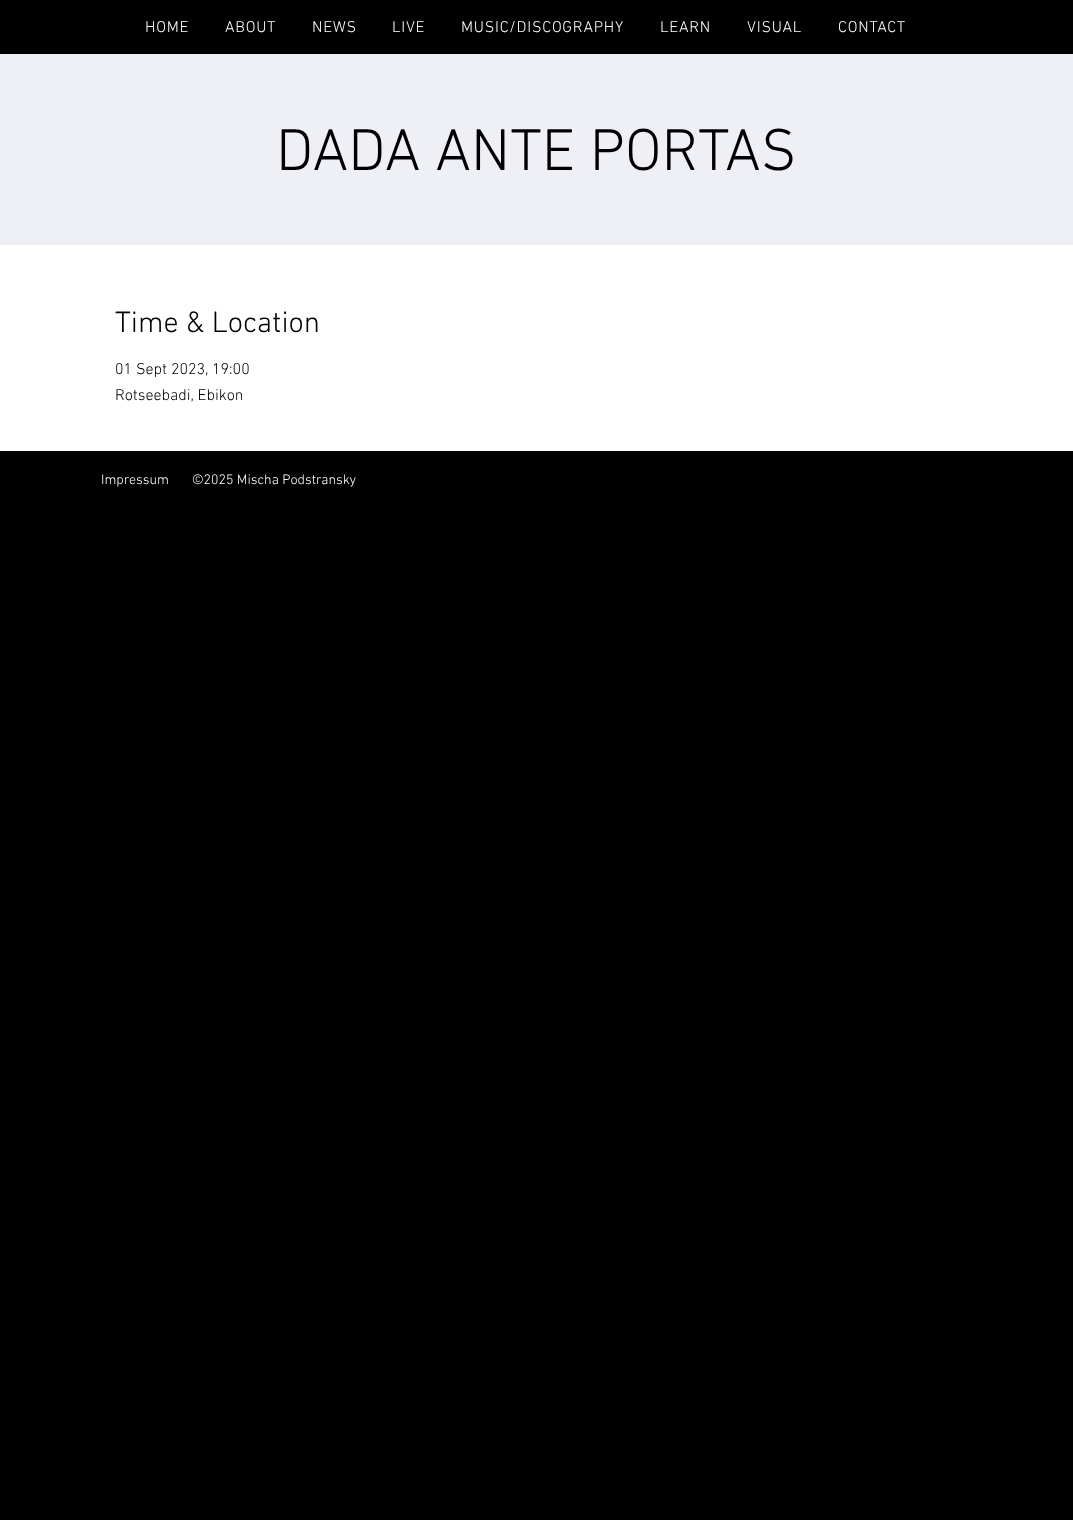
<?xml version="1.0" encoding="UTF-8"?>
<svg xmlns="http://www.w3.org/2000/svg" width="1073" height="1520">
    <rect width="100%" height="100%" fill="#000000"/>
    <text x="145" y="32" font-family="'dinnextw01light'" font-size="16" font-weight="300" letter-spacing="0.75" fill="#FFFFFF">HOME</text>
    <text x="225" y="32" font-family="'dinnextw01light'" font-size="16" font-weight="300" letter-spacing="0.75" fill="#FFFFFF">ABOUT</text>
    <text x="312" y="32" font-family="'dinnextw01light'" font-size="16" font-weight="300" letter-spacing="0.75" fill="#FFFFFF">NEWS</text>
    <text x="392" y="32" font-family="'dinnextw01light'" font-size="16" font-weight="300" letter-spacing="0.75" fill="#FFFFFF">LIVE</text>
    <text x="461" y="32" font-family="'dinnextw01light'" font-size="16" font-weight="300" letter-spacing="0.75" fill="#FFFFFF">MUSIC/DISCOGRAPHY</text>
    <text x="660" y="32" font-family="'dinnextw01light'" font-size="16" font-weight="300" letter-spacing="0.75" fill="#FFFFFF">LEARN</text>
    <text x="747" y="32" font-family="'dinnextw01light'" font-size="16" font-weight="300" letter-spacing="0.75" fill="#FFFFFF">VISUAL</text>
    <text x="838" y="32" font-family="'dinnextw01light'" font-size="16" font-weight="300" letter-spacing="0.75" fill="#FFFFFF">CONTACT</text>
    <rect x="0" y="54" width="1073" height="191" fill="#EEF0F5"/>
    <text x="276" y="170" font-family="'dinnextw01light'" font-size="60" font-weight="300" fill="#000000">DADA ANTE PORTAS</text>
    <rect x="0" y="245" width="1073" height="206" fill="#FFFFFF"/>
    <text x="115" y="332" font-family="'dinnextw01light'" font-size="30" font-weight="300" fill="#000000">Time &amp; Location</text>
    <text font-family="'dinnextw01light'" font-size="16" font-weight="300" fill="#000000">
        <tspan x="115" y="374">01 Sept 2023, 19:00</tspan>
        <tspan x="115" y="400">Rotseebadi, Ebikon</tspan>
    </text>
    <text x="101" y="484" font-family="'dinnextw01light'" font-size="14" font-weight="300" fill="#FFFFFF">Impressum</text>
    <text x="192" y="484" font-family="'dinnextw01light'" font-size="14" font-weight="300" fill="#FFFFFF">©2025 Mischa Podstransky</text>
</svg>
